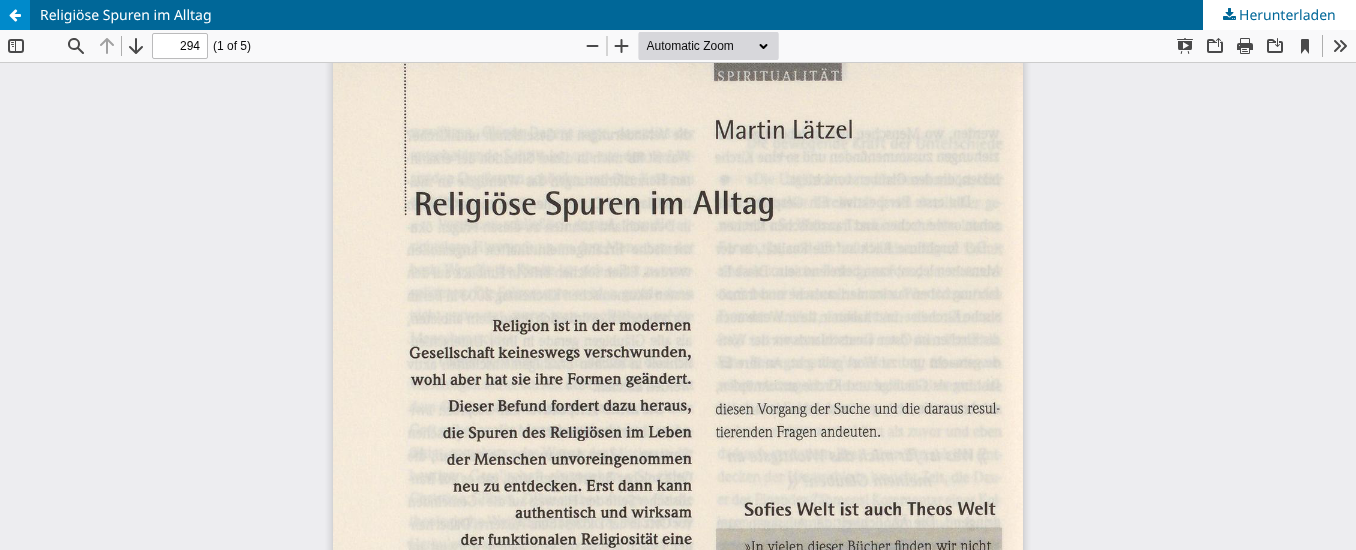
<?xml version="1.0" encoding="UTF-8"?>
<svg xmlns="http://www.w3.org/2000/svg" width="1356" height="550">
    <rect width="100%" height="100%" fill="#FFFFFF"/>
    <rect x="30" y="0" width="1173" height="30" fill="#006798"/>
    <rect x="0" y="0" width="30" height="30" fill="#008ACB"/>
    <image x="9" y="9" width="12" height="13" href="img_01.png"/>
    <text x="40" y="20" font-family="Noto Sans" font-size="14" fill="#FFFFFF">Religiöse Spuren im Alltag</text>
    <image x="1223" y="8" width="13" height="12" href="img_02.png"/>
    <text x="1239" y="20" font-family="Noto Sans" font-size="14" fill="#006798">Herunterladen</text>
    <image x="0" y="30" width="1356" height="520" href="img_03.png"/>
</svg>
